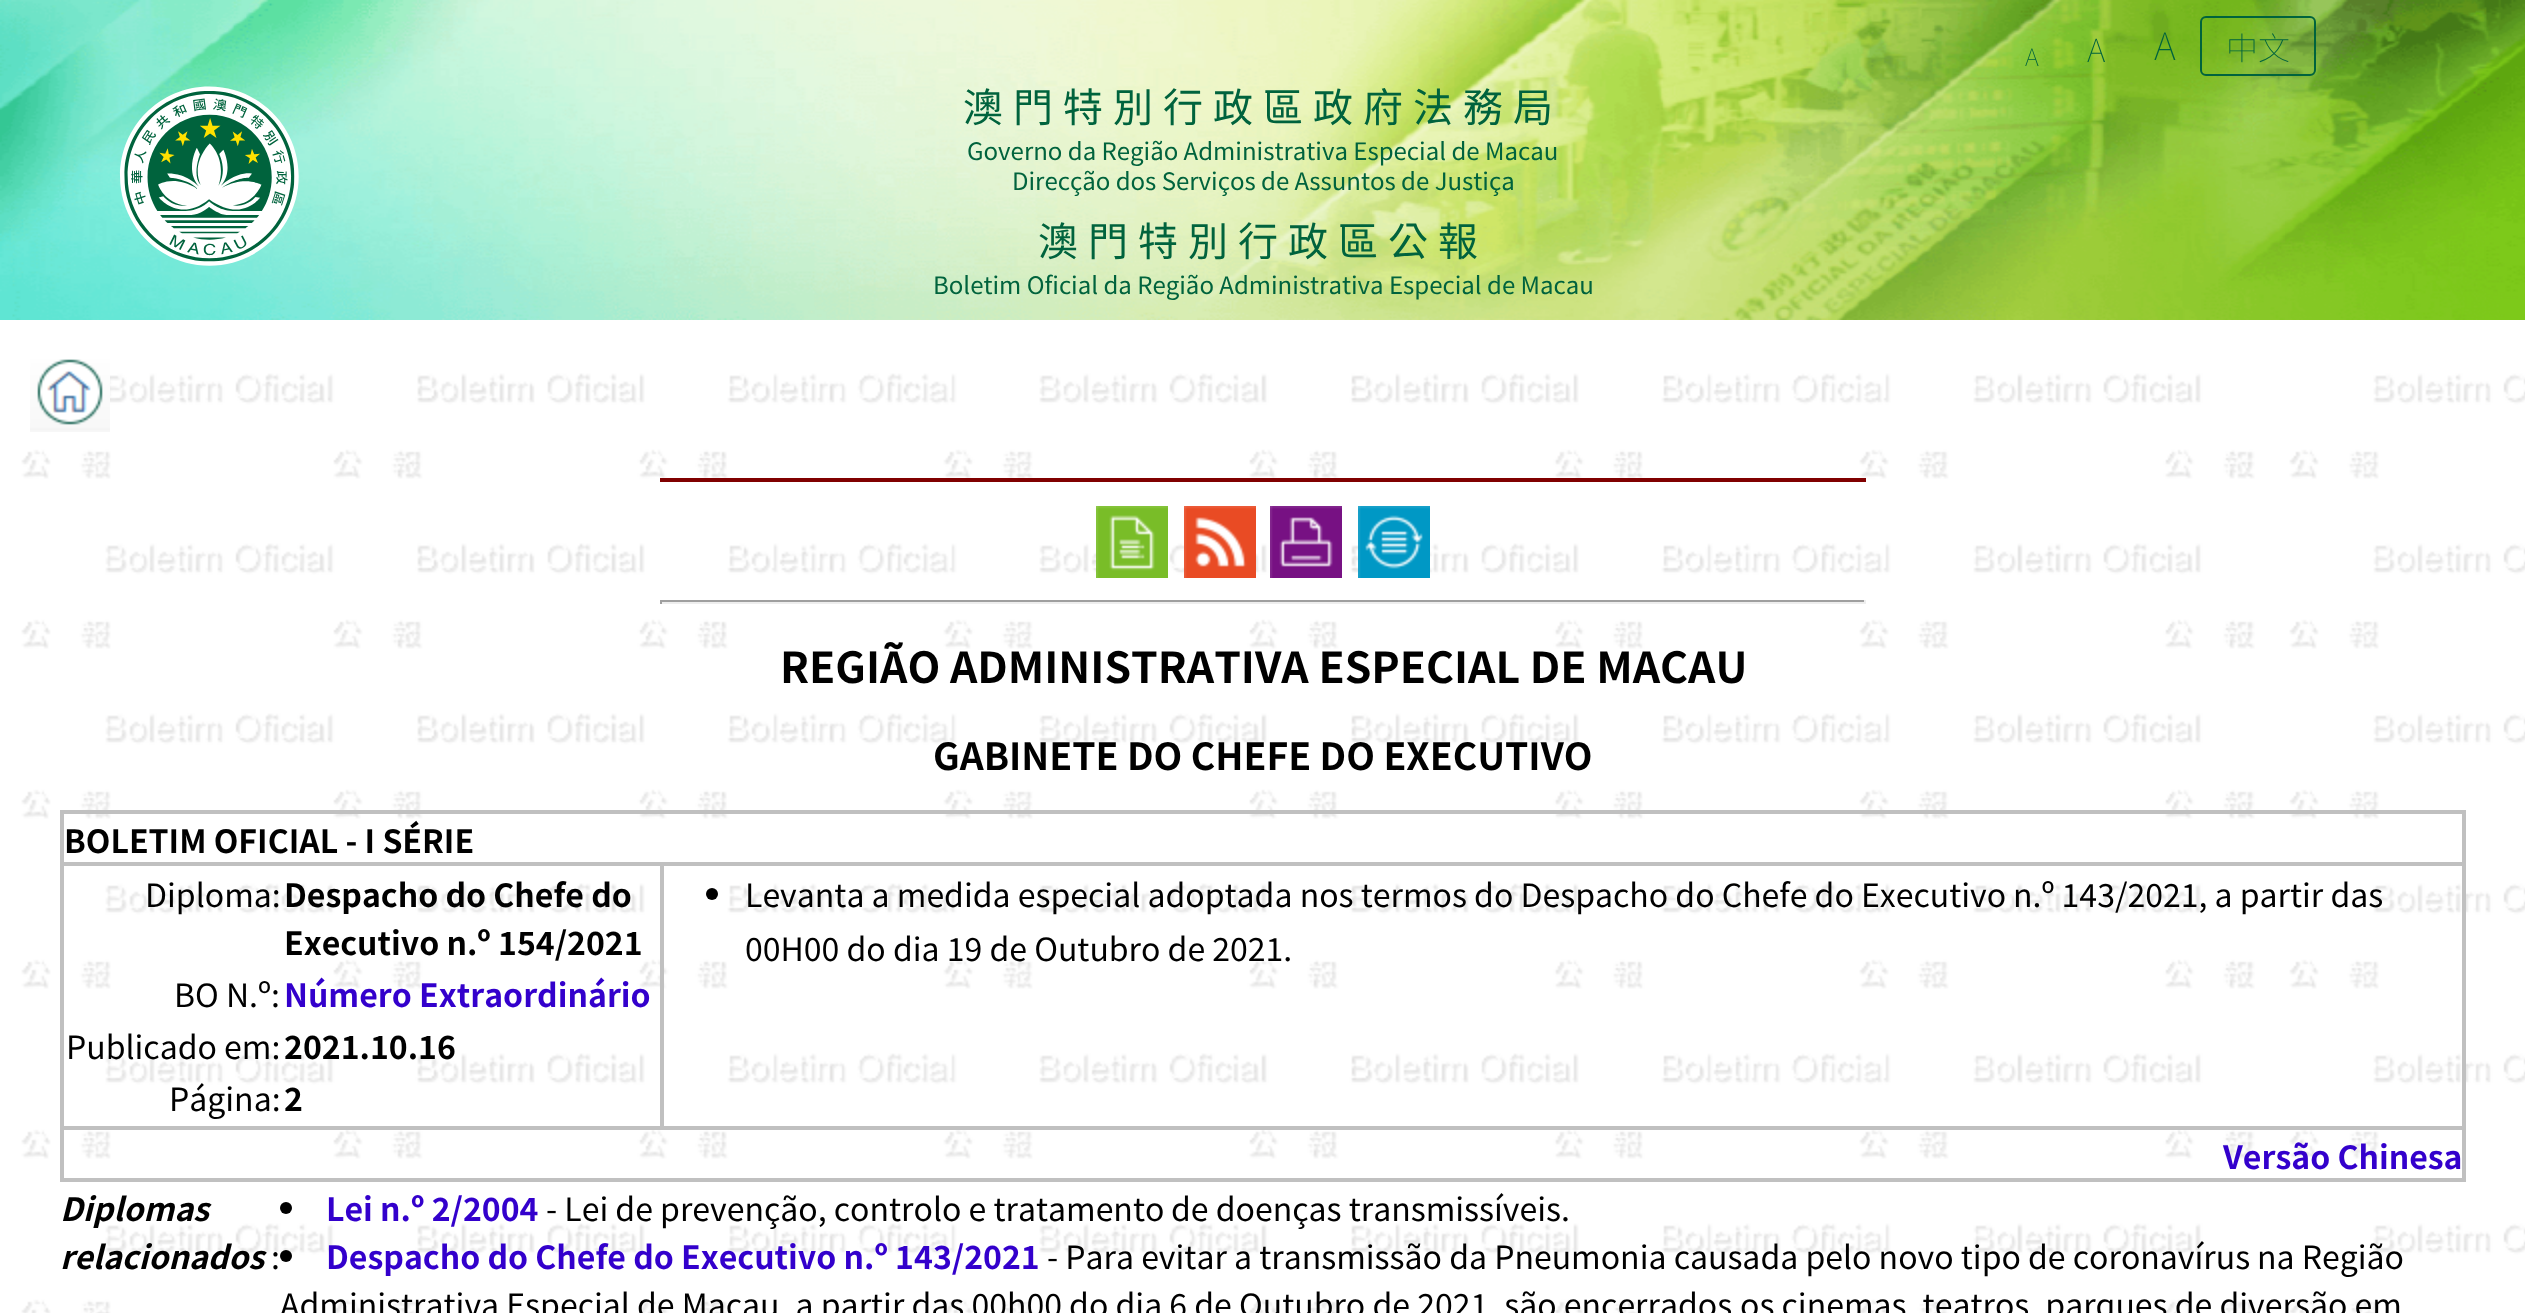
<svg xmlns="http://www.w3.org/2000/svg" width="2525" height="1313">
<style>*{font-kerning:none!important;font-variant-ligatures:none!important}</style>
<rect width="100%" height="100%" fill="#fff"/>
<image x="21" y="320" width="2504" height="993" href="media/1.png"/>
<image x="0" y="0" width="2525" height="320" href="media/2.png"/>
<text x="2025" y="66" style="font-family:Noto Sans TC;font-size:24px;font-weight:100;fill:#00633d">A</text>
<text x="2087" y="62" style="font-family:Noto Sans TC;font-size:32px;font-weight:100;fill:#00633d">A</text>
<text x="2154" y="60" style="font-family:Noto Sans TC;font-size:38px;font-weight:100;fill:#00633d">A</text>
<rect x="2201" y="17" width="114" height="58" rx="5" fill="none" stroke="#00633d" stroke-width="2"/>
<text x="2226" y="60" style="font-family:Noto Sans TC;font-size:32px;font-weight:100;fill:#00633d">中文</text>
<image x="119" y="86" width="180" height="180" href="media/3.png"/>
<text x="963" y="122" style="font-family:Noto Sans TC;font-size:40px;letter-spacing:10px;fill:#00633d">澳門特別行政區政府法務局</text>
<text x="967" y="160" style="font-family:Noto Sans TC;font-size:24px;fill:#00633d">Governo da Região Administrativa Especial de Macau</text>
<text x="1012" y="190" style="font-family:Noto Sans TC;font-size:24px;fill:#00633d">Direcção dos Serviços de Assuntos de Justiça</text>
<text x="1038" y="256" style="font-family:Noto Sans TC;font-size:40px;letter-spacing:10px;fill:#00633d">澳門特別行政區公報</text>
<text x="933" y="294" style="font-family:Noto Sans TC;font-size:24px;fill:#00633d">Boletim Oficial da Região Administrativa Especial de Macau</text>
<image x="30" y="359" width="80" height="73" href="media/4.png"/>
<rect x="660" y="478" width="1206" height="4" fill="#800000"/>
<image x="1096" y="506" width="72" height="72" href="media/5.png"/>
<image x="1184" y="506" width="72" height="72" href="media/6.png"/>
<image x="1270" y="506" width="72" height="72" href="media/7.png"/>
<image x="1358" y="506" width="72" height="72" href="media/8.png"/>
<rect x="660" y="600" width="1206" height="2" fill="#9f9f9f"/>
<rect x="1864" y="600" width="2" height="4" fill="#eee"/>
<rect x="660" y="602" width="1206" height="2" fill="#eee"/>
<rect x="660" y="600" width="2" height="4" fill="#9f9f9f"/>
<text x="780" y="683" style="font-family:Noto Sans TC;font-size:42.7px;font-weight:bold;fill:#000">REGIÃO ADMINISTRATIVA ESPECIAL DE MACAU</text>
<text x="933" y="770" style="font-family:Noto Sans TC;font-size:37.3px;font-weight:bold;fill:#000">GABINETE DO CHEFE DO EXECUTIVO</text>
<rect x="61" y="811" width="2404" height="370" fill="none" stroke="#c0c0c0" stroke-width="2"/>
<rect x="63" y="813" width="2400" height="50" fill="none" stroke="#c0c0c0" stroke-width="2"/>
<text x="64" y="853" style="font-family:Noto Sans TC;font-size:32px;font-weight:bold;fill:#000">BOLETIM OFICIAL - I SÉRIE</text>
<rect x="63" y="865" width="598" height="262" fill="none" stroke="#c0c0c0" stroke-width="2"/>
<text x="145" y="907" style="font-family:Noto Sans TC;font-size:32px;fill:#000">Diploma:</text>
<text x="284" y="907" style="font-family:Noto Sans TC;font-size:32px;font-weight:bold;fill:#000">Despacho do Chefe do</text>
<text x="284" y="955" style="font-family:Noto Sans TC;font-size:32px;font-weight:bold;fill:#000">Executivo n.º 154/2021</text>
<text x="174" y="1007" style="font-family:Noto Sans TC;font-size:32px;fill:#000">BO N.º:</text>
<text x="284" y="1007" style="font-family:Noto Sans TC;font-size:32px;font-weight:bold;fill:#30c">Número Extraordinário</text>
<text x="66" y="1059" style="font-family:Noto Sans TC;font-size:32px;fill:#000">Publicado em:</text>
<text x="284" y="1059" style="font-family:Noto Sans TC;font-size:32px;font-weight:bold;fill:#000">2021.10.16</text>
<text x="169" y="1111" style="font-family:Noto Sans TC;font-size:32px;fill:#000">Página:</text>
<text x="284" y="1111" style="font-family:Noto Sans TC;font-size:32px;font-weight:bold;fill:#000">2</text>
<rect x="663" y="865" width="1800" height="262" fill="none" stroke="#c0c0c0" stroke-width="2"/>
<circle cx="712" cy="894" r="6" fill="#000"/>
<text x="745" y="907" style="font-family:Noto Sans TC;font-size:32px;fill:#000">Levanta a medida especial adoptada nos termos do Despacho do Chefe do Executivo</text>
<text x="2013" y="907" style="font-family:Noto Sans TC;font-size:32px;fill:#000">n.º 143/2021, a partir das</text>
<text x="745" y="961" style="font-family:Noto Sans TC;font-size:32px;fill:#000">00H00 do dia 19 de Outubro de 2021.</text>
<rect x="63" y="1129" width="2400" height="50" fill="none" stroke="#c0c0c0" stroke-width="2"/>
<text x="2223" y="1169" style="font-family:Noto Sans TC;font-size:32px;font-weight:bold;fill:#30c">Versão Chinesa</text>
<text x="60" y="1221" style="font-family:Noto Sans TC;font-size:32px;font-weight:bold;font-style:italic;fill:#000">Diplomas</text>
<text x="60" y="1269" style="font-family:Noto Sans TC;font-size:32px;font-weight:bold;font-style:italic;fill:#000">relacionados</text>
<text x="271" y="1269" style="font-family:Noto Sans TC;font-size:32px;fill:#000">:</text>
<circle cx="286" cy="1208" r="6" fill="#000"/>
<text x="326" y="1221" style="font-family:Noto Sans TC;font-size:32px;font-weight:bold;fill:#30c">Lei n.º 2/2004</text>
<text x="546" y="1221" style="font-family:Noto Sans TC;font-size:32px;fill:#000">- Lei de prevenção, controlo e tratamento</text>
<text x="1171" y="1221" style="font-family:Noto Sans TC;font-size:32px;fill:#000">de doenças transmissíveis.</text>
<circle cx="286" cy="1256" r="6" fill="#000"/>
<text x="326" y="1269" style="font-family:Noto Sans TC;font-size:32px;font-weight:bold;fill:#30c">Despacho do Chefe do Executivo n.º 143/2021</text>
<text x="1047" y="1269" style="font-family:Noto Sans TC;font-size:32px;fill:#000">- Para evitar a transmissão da Pneumonia causada pelo novo tipo de coronavírus</text>
<text x="2257" y="1269" style="font-family:Noto Sans TC;font-size:32px;fill:#000">na Região</text>
<text x="280" y="1317" style="font-family:Noto Sans TC;font-size:32px;fill:#000">Administrativa Especial de Macau, a partir das 00h00 do dia 6 de Outubro de 2021, são encerrados</text>
<text x="1740" y="1317" style="font-family:Noto Sans TC;font-size:32px;fill:#000">os cinemas, teatros, parques de diversão em</text>
</svg>
